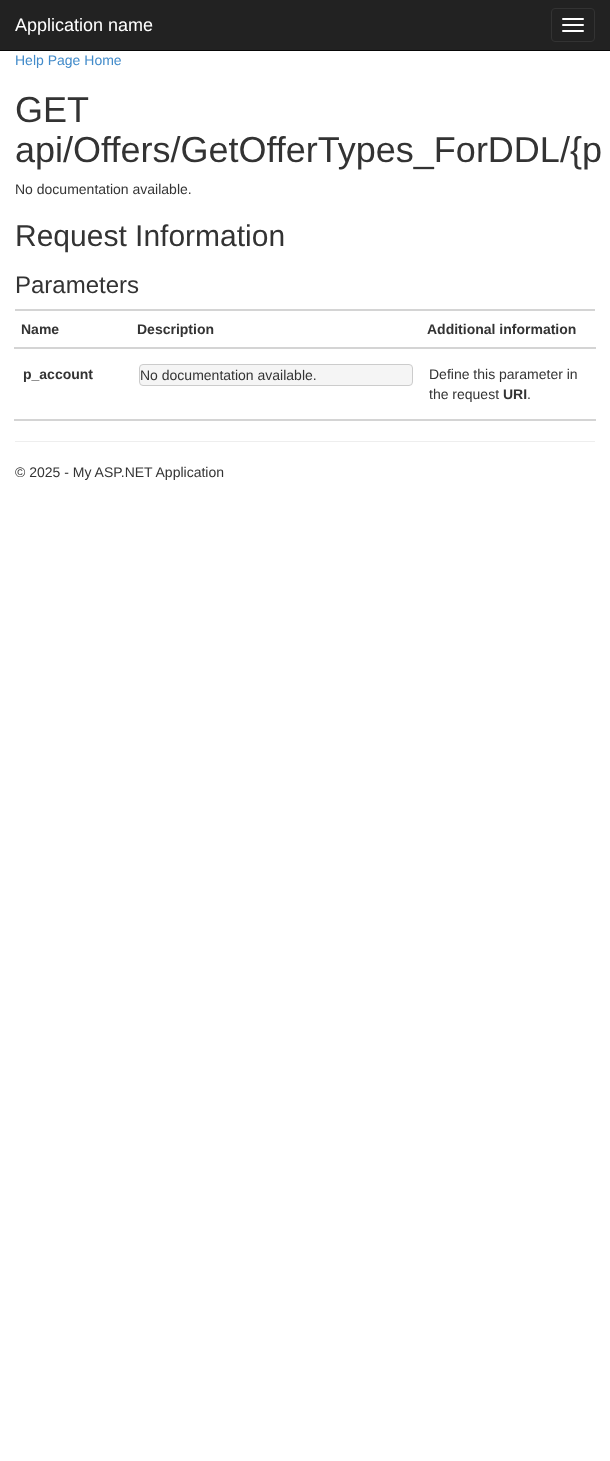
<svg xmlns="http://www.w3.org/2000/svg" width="610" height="1461">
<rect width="100%" height="100%" fill="#fff"/>
<rect width="610" height="50" fill="#222"/>
<rect y="50" width="610" height="1" fill="#080808"/>
<text x="15" y="31" style="font-family:Liberation Sans;font-size:18px;fill:#fff">Application name</text>
<rect x="551.5" y="8.5" width="43" height="33" rx="3.5" fill="none" stroke="#333"/>
<rect x="562" y="18" width="22" height="2" rx="1" fill="#fff"/>
<rect x="562" y="24" width="22" height="2" rx="1" fill="#fff"/>
<rect x="562" y="30" width="22" height="2" rx="1" fill="#fff"/>
<text x="15" y="65" style="font-family:Liberation Sans;font-size:14px;fill:#428bca">Help Page Home</text>
<text x="15" y="122" style="font-family:Liberation Sans;font-size:36px;fill:#333">GET</text>
<text x="15" y="162" style="font-family:Liberation Sans;font-size:36px;fill:#333">api/Offers/GetOfferTypes_ForDDL/{p</text>
<text x="15" y="194" style="font-family:Liberation Sans;font-size:14px;fill:#333">No documentation available.</text>
<text x="15" y="246" style="font-family:Liberation Sans;font-size:30px;fill:#333">Request Information</text>
<text x="15" y="293" style="font-family:Liberation Sans;font-size:24px;fill:#333">Parameters</text>
<rect x="15" y="309" width="580" height="2" fill="#d4d4d4"/>
<text x="21" y="334" style="font-family:Liberation Sans;font-size:14px;font-weight:bold;fill:#333">Name</text>
<text x="137" y="334" style="font-family:Liberation Sans;font-size:14px;font-weight:bold;fill:#333">Description</text>
<rect x="14" y="347" width="582" height="2" fill="#d4d4d4"/>
<text x="427" y="334" style="font-family:Liberation Sans;font-size:14px;font-weight:bold;fill:#333">Additional information</text>
<text x="23" y="379" style="font-family:Liberation Sans;font-size:14px;font-weight:bold;fill:#333">p_account</text>
<rect x="139.5" y="364.5" width="273" height="21" rx="3.5" fill="#f5f5f5" stroke="#ccc"/>
<text x="140" y="380" style="font-family:Liberation Sans;font-size:14px;fill:#333">No documentation available.</text>
<rect x="14" y="419" width="582" height="2" fill="#d4d4d4"/>
<text x="429" y="379" style="font-family:Liberation Sans;font-size:14px;fill:#333">Define this parameter in</text>
<text x="429" y="399" style="font-family:Liberation Sans;font-size:14px;fill:#333">the request</text>
<text x="503" y="399" style="font-family:Liberation Sans;font-size:14px;font-weight:bold;fill:#333">URI</text>
<text x="527" y="399" style="font-family:Liberation Sans;font-size:14px;fill:#333">.</text>
<rect x="15" y="441" width="580" height="1" fill="#eee"/>
<text x="15" y="477" style="font-family:Liberation Sans;font-size:14px;fill:#333">© 2025 - My ASP.NET Application</text>
</svg>
